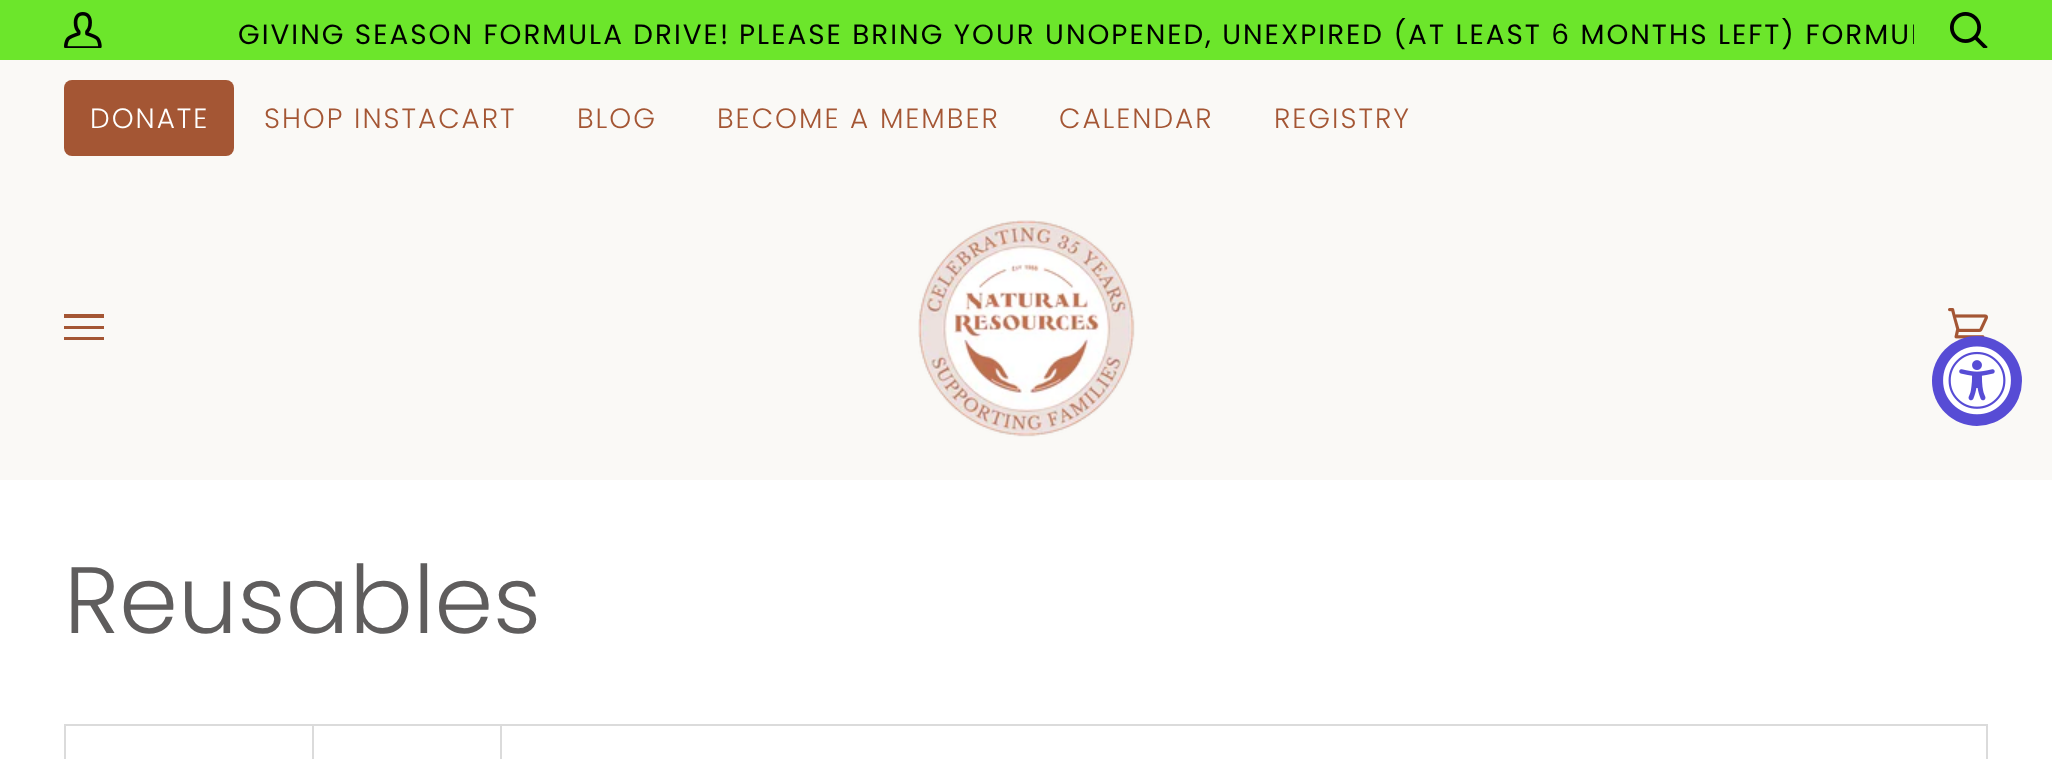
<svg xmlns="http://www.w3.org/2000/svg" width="2052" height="759">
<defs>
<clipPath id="clip1"><rect x="138" width="1776" height="60"/></clipPath>
</defs>
<rect width="100%" height="100%" fill="#fff"/>
<rect width="2052" height="60" fill="#6ce62b"/>
<image x="64" y="12" width="38" height="36" href="media/1.png"/>
<text x="238" y="44" style="font-family:Poppins;font-size:27.85px;letter-spacing:2px;fill:#000">GIVING SEASON FORMULA DRIVE!</text>
<g clip-path="url(#clip1)">
<text x="739" y="44" style="font-family:Poppins;font-size:27.85px;letter-spacing:2px;fill:#000">PLEASE BRING YOUR UNOPENED, UNEXPIRED (AT LEAST 6 MONTHS LEFT) FORMUL</text>
</g>
<image x="1950" y="12" width="38" height="36" href="media/2.png"/>
<rect y="60" width="2052" height="420" fill="#faf9f6"/>
<rect x="64" y="80" width="170" height="76" rx="8" fill="#a45634"/>
<text x="90" y="128" style="font-family:Poppins;font-size:27.85px;font-weight:300;letter-spacing:2px;fill:#fff">DONATE</text>
<text x="264" y="128" style="font-family:Poppins;font-size:27.85px;font-weight:300;letter-spacing:2px;fill:#a45634">SHOP INSTACART</text>
<text x="577" y="128" style="font-family:Poppins;font-size:27.85px;font-weight:300;letter-spacing:2px;fill:#a45634">BLOG</text>
<text x="717" y="128" style="font-family:Poppins;font-size:27.85px;font-weight:300;letter-spacing:2px;fill:#a45634">BECOME A MEMBER</text>
<text x="1059" y="128" style="font-family:Poppins;font-size:27.85px;font-weight:300;letter-spacing:2px;fill:#a45634">CALENDAR</text>
<text x="1274" y="128" style="font-family:Poppins;font-size:27.85px;font-weight:300;letter-spacing:2px;fill:#a45634">REGISTRY</text>
<path d="M64 314h40v4h-40zm0 12h40v3h-40zm0 11h40v3h-40z" fill="#a45634"/>
<image x="918" y="220" width="217" height="217" href="media/3.png"/>
<image x="1948" y="308" width="40" height="31" href="media/4.png"/>
<circle cx="1977" cy="381" r="45" fill="#574cd5"/>
<image x="1943" y="346" width="68" height="69" href="media/5.png"/>
<text x="64" y="633" style="font-family:Poppins;font-size:94.25px;font-weight:300;fill:#5f5d5d">Reusables</text>
<rect x="65" y="725" width="1922" height="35" fill="none" stroke="#dbdbdb" stroke-width="2"/>
<rect x="312" y="726" width="2" height="33" fill="#dbdbdb"/>
<rect x="500" y="726" width="2" height="33" fill="#dbdbdb"/>
</svg>
